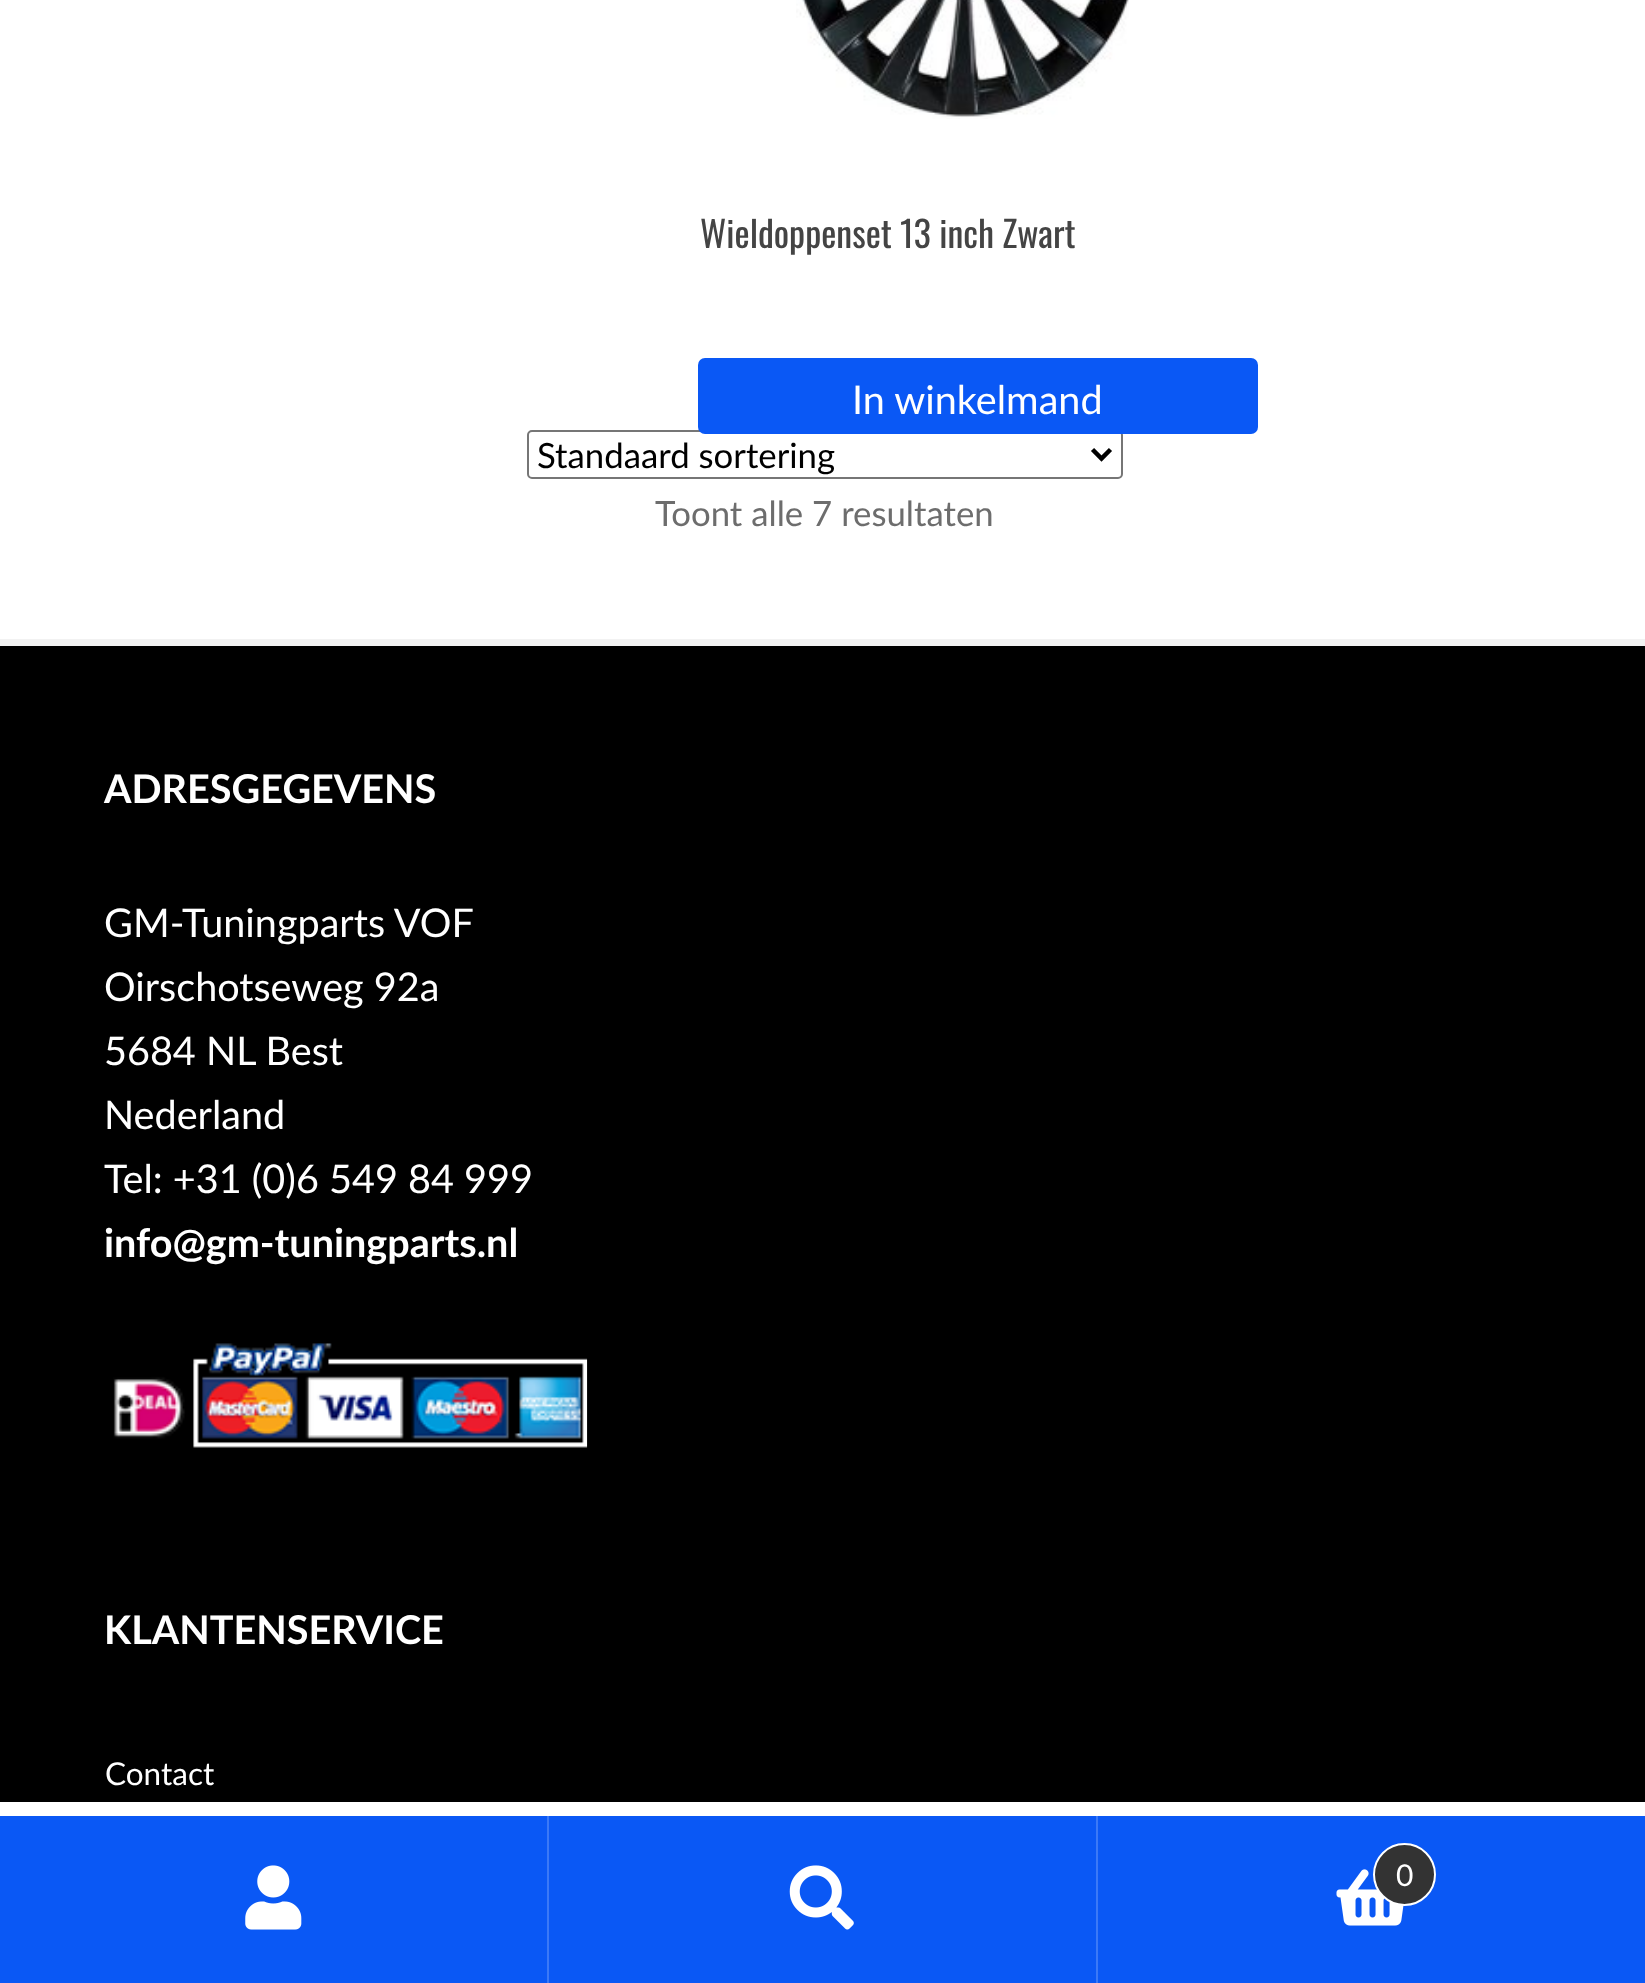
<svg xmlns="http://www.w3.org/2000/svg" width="1645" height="1983">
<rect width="100%" height="100%" fill="#fff"/>
<image x="796" y="0" width="333" height="119" href="media/1.png"/>
<text x="700" y="248" style="font-family:Oswald;font-size:36px;fill:#444">Wieldoppenset 13 inch Zwart</text>
<rect x="528" y="431" width="594" height="47" rx="4" fill="none" stroke="#767676" stroke-width="2"/>
<rect x="698" y="358" width="560" height="76" rx="7" fill="#0a58f5"/>
<text x="852" y="414" style="font-family:Lato;font-size:39.6px;fill:#fff">In winkelmand</text>
<path d="M1092.5 449.5l9 9l9-9" fill="none" stroke="#000" stroke-width="4.5"/>
<text x="537" y="468" style="font-family:Lato;font-size:34.75px;fill:#000">Standaard sortering</text>
<text x="655" y="526" style="font-family:Lato;font-size:34.75px;fill:#6d6d6d">Toont alle 7 resultaten</text>
<rect x="-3.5" y="642.5" width="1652" height="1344" fill="none" stroke="#f2f2f2" stroke-width="7"/>
<rect y="646" width="1645" height="1156" fill="#000"/>
<text x="104" y="803" style="font-family:Lato;font-size:39.6px;font-weight:bold;fill:#fff">ADRESGEGEVENS</text>
<text x="104" y="937" style="font-family:Lato;font-size:39.6px;fill:#fff">GM-Tuningparts VOF</text>
<text x="104" y="1001" style="font-family:Lato;font-size:39.6px;fill:#fff">Oirschotseweg 92a</text>
<text x="104" y="1065" style="font-family:Lato;font-size:39.6px;fill:#fff">5684 NL Best</text>
<text x="104" y="1129" style="font-family:Lato;font-size:39.6px;fill:#fff">Nederland</text>
<text x="104" y="1193" style="font-family:Lato;font-size:39.6px;fill:#fff">Tel: +31 (0)6 549 84 999</text>
<text x="104" y="1257" style="font-family:Lato;font-size:39.6px;font-weight:bold;fill:#fff">info@gm-tuningparts.nl</text>
<image x="113" y="1343" width="475" height="105" href="media/2.png"/>
<text x="104" y="1644" style="font-family:Lato;font-size:39.6px;font-weight:bold;fill:#fff">KLANTENSERVICE</text>
<text x="105" y="1785" style="font-family:Lato;font-size:31.5px;fill:#fff">Contact</text>
<rect y="1816" width="547" height="167" fill="#0a58f5"/>
<rect x="547" y="1816" width="2" height="167" fill="#3b79f7"/>
<image x="245" y="1865" width="57" height="65" href="media/3.png"/>
<rect x="549" y="1816" width="547" height="167" fill="#0a58f5"/>
<rect x="1096" y="1816" width="2" height="167" fill="#3b79f7"/>
<image x="789" y="1865" width="65" height="65" href="media/4.png"/>
<rect x="1098" y="1816" width="547" height="167" fill="#0a58f5"/>
<image x="1336" y="1869" width="68" height="57" href="media/5.png"/>
<circle cx="1404.5" cy="1874.5" r="30.5" fill="#333" stroke="#fff" stroke-width="2"/>
<text x="1396" y="1886" style="font-family:Lato;font-size:30px;fill:#fff">0</text>
</svg>
